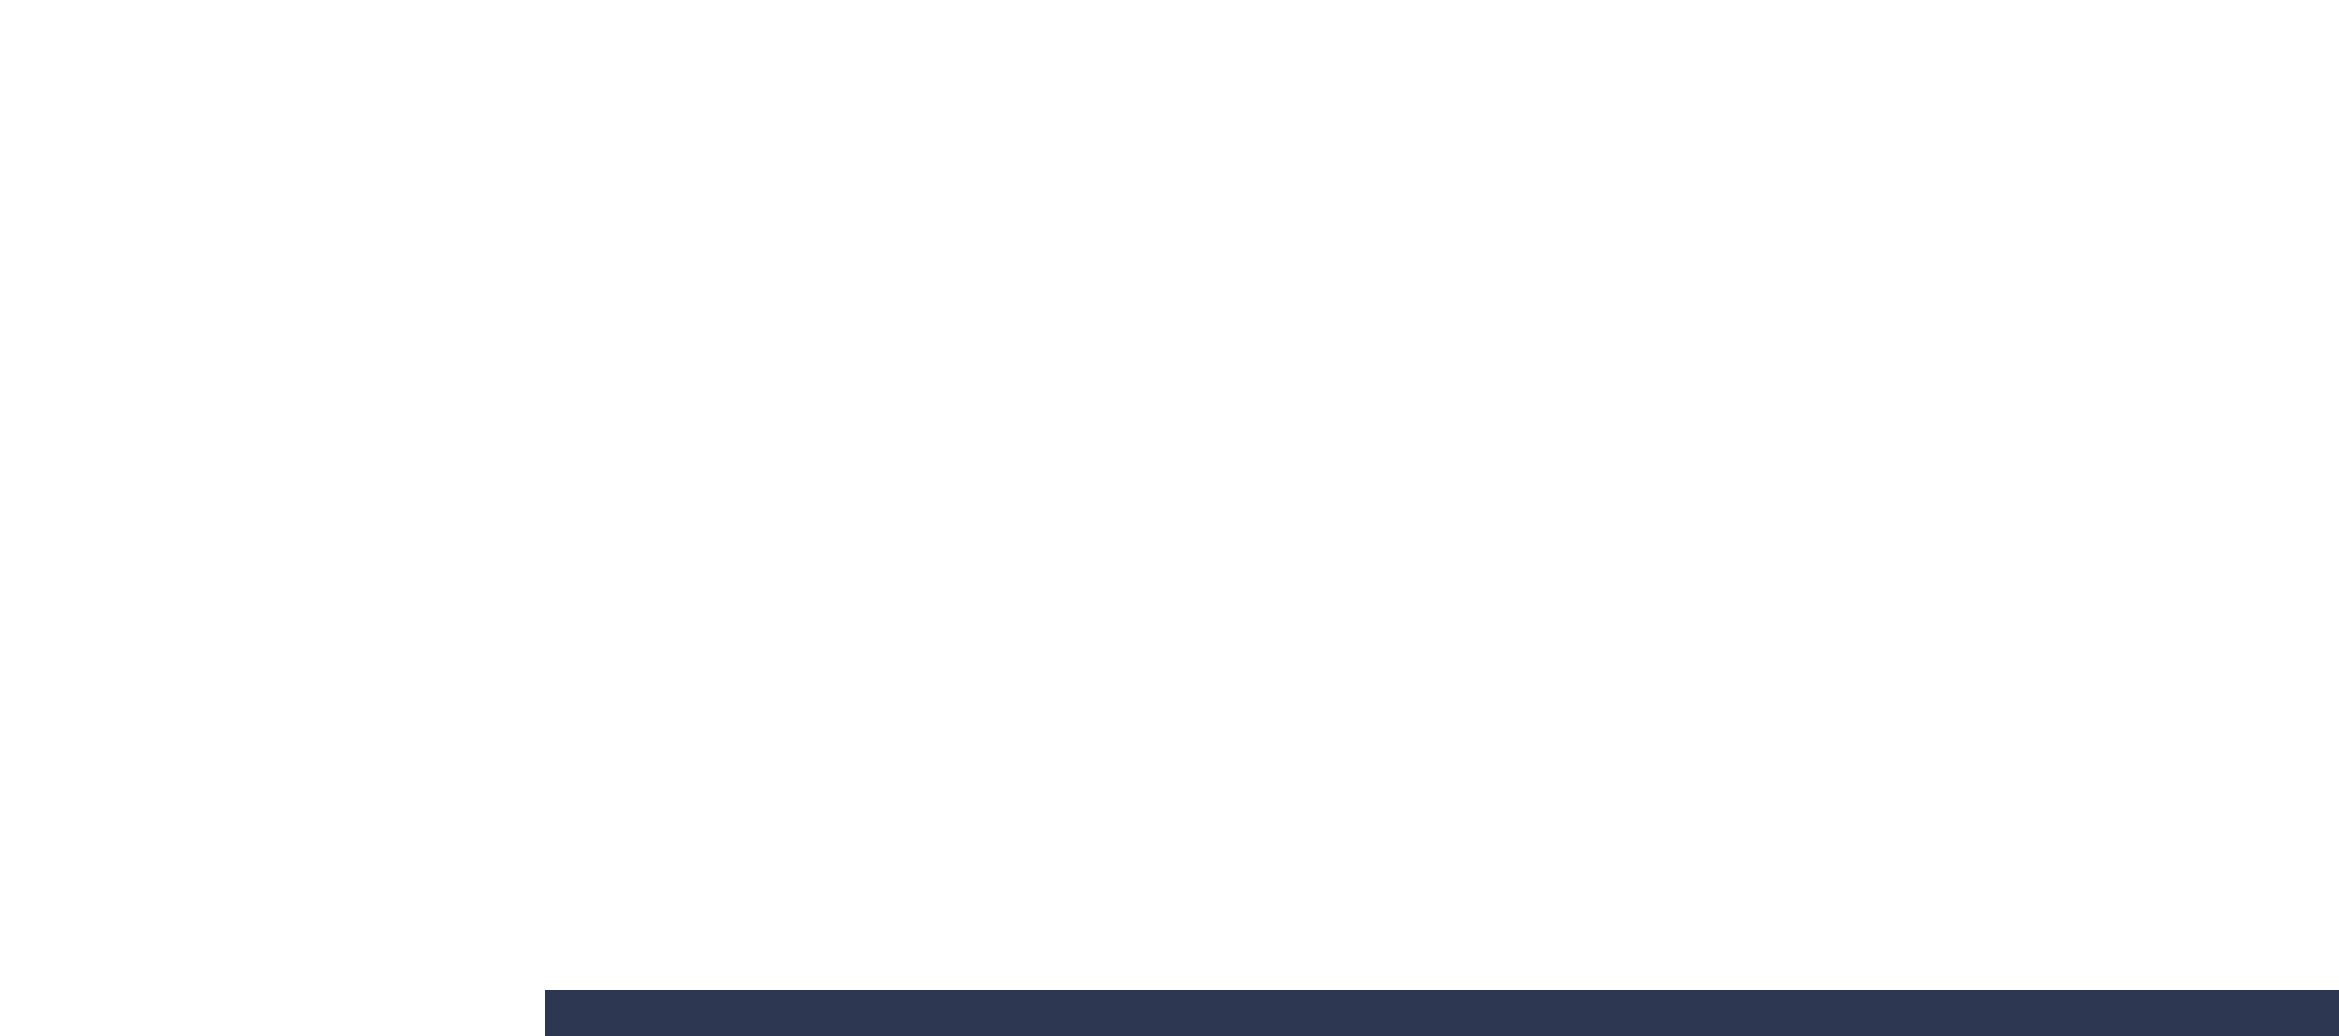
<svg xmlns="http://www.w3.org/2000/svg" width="2339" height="1036">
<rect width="100%" height="100%" fill="#fff"/>
<rect x="545" y="990" width="1794" height="46" fill="#2e3751"/>
</svg>
